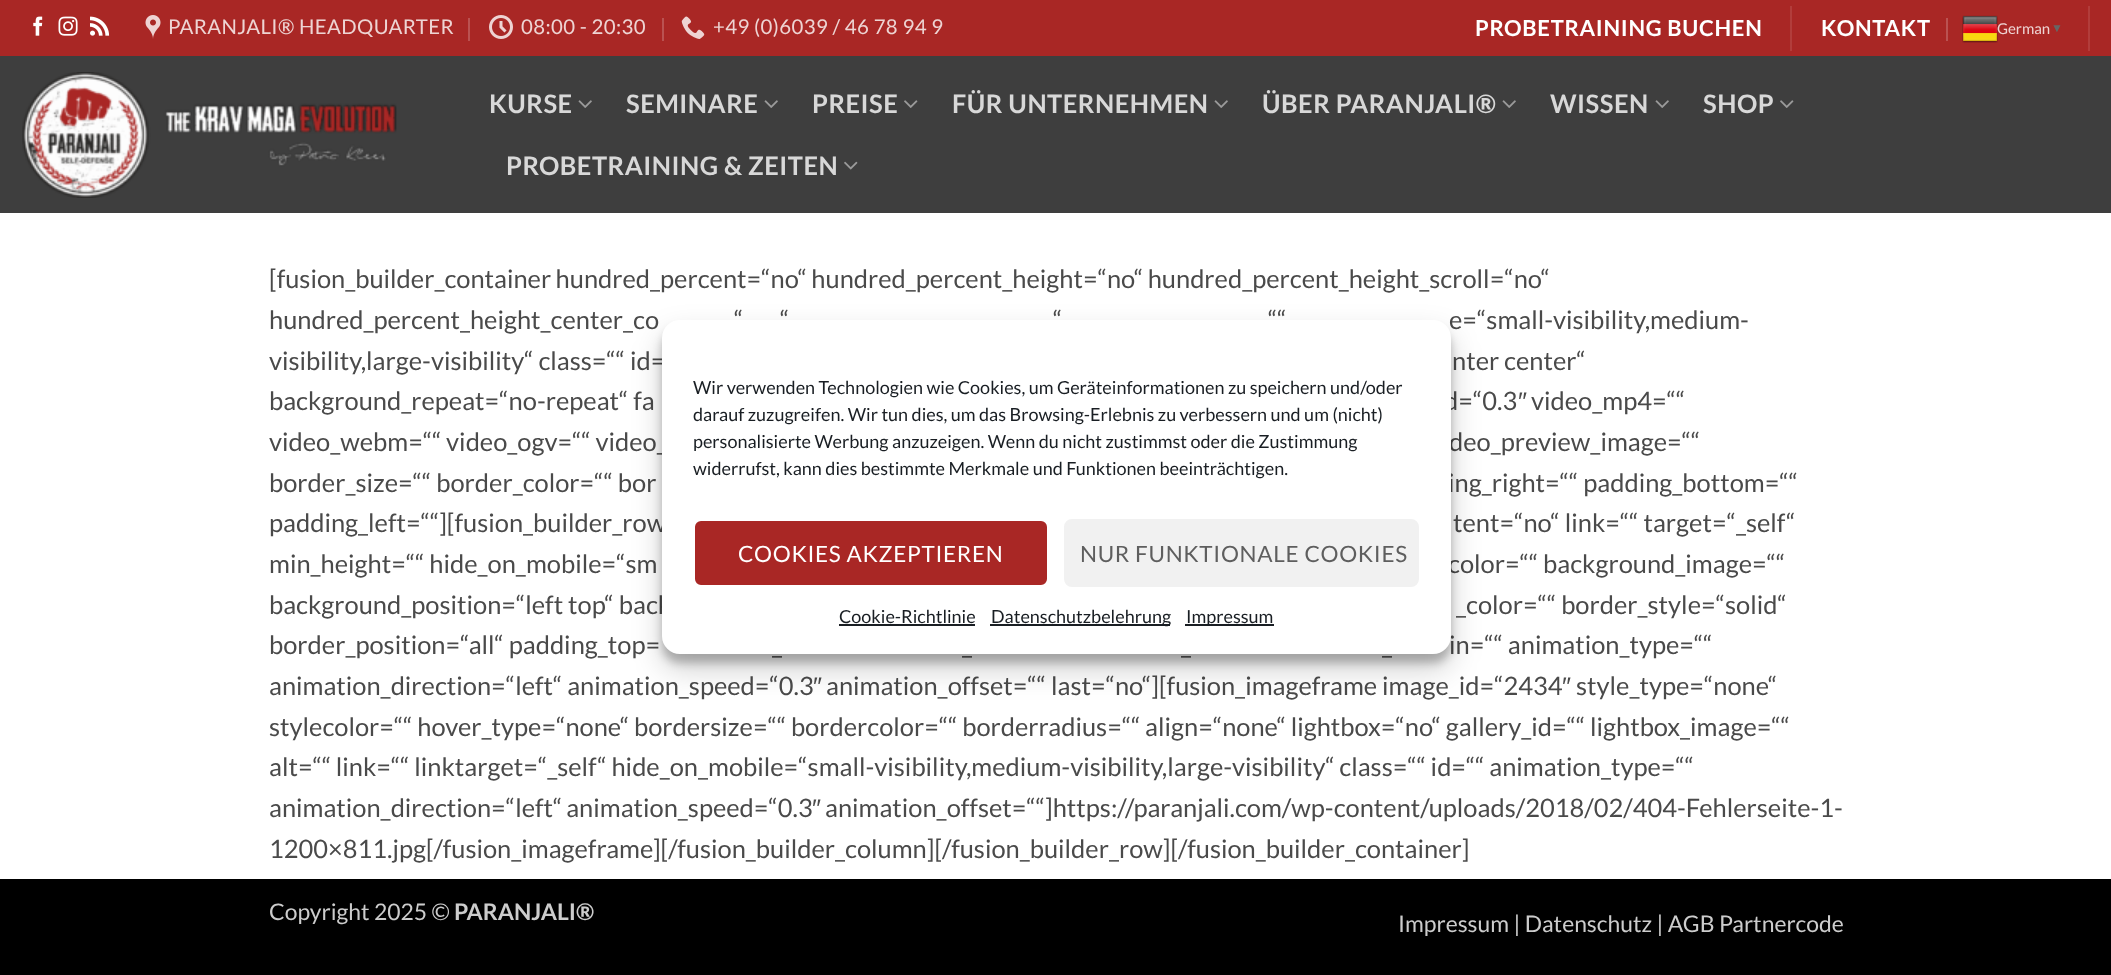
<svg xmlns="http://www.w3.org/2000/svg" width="2111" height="975">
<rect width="100%" height="100%" fill="#fff"/>
<rect width="2111" height="56" fill="#a92725"/>
<image x="33" y="16" width="10" height="20" href="media/1.png"/>
<image x="58" y="16" width="20" height="20" href="media/2.png"/>
<image x="90" y="16" width="20" height="20" href="media/3.png"/>
<image x="145" y="15" width="16" height="24" href="media/4.png"/>
<text x="168" y="34" style="font-family:Lato;font-size:20.4px;letter-spacing:0.4px;fill:#eed4d3">PARANJALI® HEADQUARTER</text>
<rect x="468" y="18" width="2" height="23" fill="#ba5251"/>
<image x="489" y="15" width="24" height="24" href="media/5.png"/>
<text x="521" y="34" style="font-family:Lato;font-size:20.4px;letter-spacing:0.4px;fill:#eed4d3">08:00 - 20:30</text>
<rect x="662" y="18" width="2" height="23" fill="#ba5251"/>
<image x="681" y="16" width="24" height="23" href="media/6.png"/>
<text x="713" y="34" style="font-family:Lato;font-size:20.4px;letter-spacing:0.4px;fill:#eed4d3">+49 (0)6039 / 46 78 94 9</text>
<text x="1475" y="36" style="font-family:Lato;font-size:22px;font-weight:bold;letter-spacing:0.7px;fill:#fff">PROBETRAINING BUCHEN</text>
<rect x="1790" y="6" width="2" height="45" fill="#b23d3b"/>
<text x="1821" y="36" style="font-family:Lato;font-size:22px;font-weight:bold;letter-spacing:0.7px;fill:#fff">KONTAKT</text>
<rect x="1946" y="18" width="2" height="23" fill="#ba5251"/>
<image x="1962" y="15" width="36" height="28" href="media/7.png"/>
<text x="1997" y="34" style="font-family:Lato;font-size:15px;fill:#eed4d3">German</text>
<text x="2051" y="32" style="font-family:Liberation Sans;font-size:12px;font-weight:bold;fill:#666">▼</text>
<rect x="2088" y="6" width="2" height="45" fill="#b23d3b"/>
<rect y="56" width="2111" height="157" fill="#3e3e3e"/>
<image x="22" y="72" width="375" height="126" href="media/8.png"/>
<text x="489" y="113" style="font-family:Lato;font-size:25.45px;font-weight:bold;letter-spacing:0.5px;fill:#d8d8d8">KURSE</text>
<image x="578" y="100" width="14" height="8" href="media/9.png"/>
<text x="626" y="113" style="font-family:Lato;font-size:25.45px;font-weight:bold;letter-spacing:0.5px;fill:#d8d8d8">SEMINARE</text>
<image x="764" y="100" width="14" height="8" href="media/9.png"/>
<text x="812" y="113" style="font-family:Lato;font-size:25.45px;font-weight:bold;letter-spacing:0.5px;fill:#d8d8d8">PREISE</text>
<image x="904" y="100" width="14" height="8" href="media/10.png"/>
<text x="952" y="113" style="font-family:Lato;font-size:25.45px;font-weight:bold;letter-spacing:0.5px;fill:#d8d8d8">FÜR UNTERNEHMEN</text>
<image x="1214" y="100" width="14" height="8" href="media/9.png"/>
<text x="1262" y="113" style="font-family:Lato;font-size:25.45px;font-weight:bold;letter-spacing:0.5px;fill:#d8d8d8">ÜBER PARANJALI®</text>
<image x="1502" y="100" width="14" height="8" href="media/9.png"/>
<text x="1550" y="113" style="font-family:Lato;font-size:25.45px;font-weight:bold;letter-spacing:0.5px;fill:#d8d8d8">WISSEN</text>
<image x="1655" y="100" width="14" height="8" href="media/9.png"/>
<text x="1703" y="113" style="font-family:Lato;font-size:25.45px;font-weight:bold;letter-spacing:0.5px;fill:#d8d8d8">SHOP</text>
<image x="1780" y="100" width="14" height="8" href="media/10.png"/>
<text x="506" y="175" style="font-family:Lato;font-size:25.45px;font-weight:bold;letter-spacing:0.5px;fill:#d8d8d8">PROBETRAINING &amp; ZEITEN</text>
<image x="844" y="161" width="14" height="9" href="media/11.png"/>
<text x="269" y="288" word-spacing="-0.5" style="font-family:Lato;font-size:25.45px;fill:#4a4a4a">[fusion_builder_container hundred_percent=“no“ hundred_percent_height=“no“ hundred_percent_height_scroll=“no“</text>
<text x="269" y="329" word-spacing="-1" style="font-family:Lato;font-size:25.45px;fill:#4a4a4a">hundred_percent_height_center_co</text>
<text x="734" y="329" word-spacing="-1" style="font-family:Lato;font-size:25.45px;fill:#4a4a4a">“</text>
<text x="780" y="329" word-spacing="-1" style="font-family:Lato;font-size:25.45px;fill:#4a4a4a">“</text>
<text x="1053" y="329" word-spacing="-1" style="font-family:Lato;font-size:25.45px;fill:#4a4a4a">“</text>
<text x="1268" y="329" word-spacing="-1" style="font-family:Lato;font-size:25.45px;fill:#4a4a4a">““</text>
<text x="1449" y="329" word-spacing="-1" style="font-family:Lato;font-size:25.45px;fill:#4a4a4a">e=“small-visibility,medium-</text>
<text x="269" y="370" style="font-family:Lato;font-size:25.45px;fill:#4a4a4a">visibility,large-visibility“ class=““ id=</text>
<text x="1452" y="370" style="font-family:Lato;font-size:25.45px;fill:#4a4a4a">nter center“</text>
<text x="269" y="410" style="font-family:Lato;font-size:25.45px;fill:#4a4a4a">background_repeat=“no-repeat“ fa</text>
<text x="1444" y="410" style="font-family:Lato;font-size:25.45px;fill:#4a4a4a">d=“0.3</text>
<text x="1518" y="410" style="font-family:Liberation Sans;font-size:25.45px;fill:#4a4a4a">″</text>
<text x="1531" y="410" style="font-family:Lato;font-size:25.45px;fill:#4a4a4a">video_mp4=““</text>
<text x="269" y="451" word-spacing="-0.25" style="font-family:Lato;font-size:25.45px;fill:#4a4a4a">video_webm=““ video_ogv=““ video_</text>
<text x="1449" y="451" word-spacing="-0.25" style="font-family:Lato;font-size:25.45px;fill:#4a4a4a">deo_preview_image=““</text>
<text x="269" y="492" style="font-family:Lato;font-size:25.45px;fill:#4a4a4a">border_size=““ border_color=““ bor</text>
<text x="1448" y="492" style="font-family:Lato;font-size:25.45px;fill:#4a4a4a">ing_right=““ padding_bottom=““</text>
<text x="269" y="532" style="font-family:Lato;font-size:25.45px;fill:#4a4a4a">padding_left=““][fusion_builder_row</text>
<text x="1453" y="532" style="font-family:Lato;font-size:25.45px;fill:#4a4a4a">tent=“no“ link=““ target=“_self“</text>
<text x="269" y="573" style="font-family:Lato;font-size:25.45px;fill:#4a4a4a">min_height=““ hide_on_mobile=“sm</text>
<text x="1448" y="573" style="font-family:Lato;font-size:25.45px;fill:#4a4a4a">color=““ background_image=““</text>
<text x="269" y="614" style="font-family:Lato;font-size:25.45px;fill:#4a4a4a">background_position=“left top“ back</text>
<text x="1456" y="614" style="font-family:Lato;font-size:25.45px;fill:#4a4a4a">_color=““ border_style=“solid“</text>
<text x="269" y="654" style="font-family:Lato;font-size:25.45px;fill:#4a4a4a">border_position=“all“ padding_top=</text>
<text x="772" y="654" style="font-family:Lato;font-size:25.45px;fill:#4a4a4a">_</text>
<text x="962" y="654" style="font-family:Lato;font-size:25.45px;fill:#4a4a4a">_</text>
<text x="1181" y="654" style="font-family:Lato;font-size:25.45px;fill:#4a4a4a">_</text>
<text x="1382" y="654" style="font-family:Lato;font-size:25.45px;fill:#4a4a4a">_</text>
<text x="1449" y="654" style="font-family:Lato;font-size:25.45px;fill:#4a4a4a">in=““ animation_type=““</text>
<text x="269" y="695" style="font-family:Lato;font-size:25.45px;fill:#4a4a4a">animation_direction=“left“ animation_speed=“0.3</text>
<text x="813" y="695" style="font-family:Liberation Sans;font-size:25.45px;fill:#4a4a4a">″</text>
<text x="826" y="695" style="font-family:Lato;font-size:25.45px;fill:#4a4a4a">animation_offset=““ last=“no“][fusion_imageframe image_id=“2434</text>
<text x="1562" y="695" style="font-family:Liberation Sans;font-size:25.45px;fill:#4a4a4a">″</text>
<text x="1576" y="695" style="font-family:Lato;font-size:25.45px;fill:#4a4a4a">style_type=“none“</text>
<text x="269" y="736" word-spacing="-0.25" style="font-family:Lato;font-size:25.45px;fill:#4a4a4a">stylecolor=““ hover_type=“none“ bordersize=““ bordercolor=““ borderradius=““ align=“none“ lightbox=“no“ gallery_id=““ lightbox_image=““</text>
<text x="269" y="776" word-spacing="-0.25" style="font-family:Lato;font-size:25.45px;fill:#4a4a4a">alt=““ link=““ linktarget=“_self“ hide_on_mobile=“small-visibility,medium-visibility,large-visibility“ class=““ id=““ animation_type=““</text>
<text x="269" y="817" word-spacing="-1" style="font-family:Lato;font-size:25.45px;fill:#4a4a4a">animation_direction=“left“ animation_speed=“0.3</text>
<text x="812" y="817" style="font-family:Liberation Sans;font-size:25.45px;fill:#4a4a4a">″</text>
<text x="825" y="817" style="font-family:Lato;font-size:25.45px;fill:#4a4a4a">animation_offset=““]https://paranjali.com/wp-content/uploads/2018/02/404-Fehlerseite-1-</text>
<text x="269" y="858" style="font-family:Lato;font-size:25.45px;fill:#4a4a4a">1200×811.jpg[/fusion_imageframe][/fusion_builder_column][/fusion_builder_row][/fusion_builder_container]</text>
<rect y="879" width="2111" height="96" fill="#000"/>
<text x="269" y="920" style="font-family:Lato;font-size:22.9px;fill:#ccc">Copyright 2025 ©</text>
<text x="454" y="920" style="font-family:Lato;font-size:22.9px;font-weight:bold;fill:#ccc">PARANJALI®</text>
<text x="1398" y="932" style="font-family:Lato;font-size:22.9px;fill:#ccc">Impressum | Datenschutz | AGB Partnercode</text>
<rect x="662" y="329" width="789" height="334" rx="18" fill="#0000003b" filter="blur(4.5px)"/>
<rect x="662" y="335" width="789" height="334" rx="18" fill="#00000030" filter="blur(15px)"/>
<rect x="663" y="321" width="787" height="332" rx="17" fill="#fff" stroke="#fff" stroke-width="2"/>
<text x="693" y="394" style="font-family:Lato;font-size:18px;fill:#191e23">Wir verwenden Technologien wie Cookies, um Geräteinformationen zu speichern und/oder</text>
<text x="693" y="421" style="font-family:Lato;font-size:18px;fill:#191e23">darauf zuzugreifen. Wir tun dies, um das Browsing-Erlebnis zu verbessern und um (nicht)</text>
<text x="693" y="448" style="font-family:Lato;font-size:18px;fill:#191e23">personalisierte Werbung anzuzeigen. Wenn du nicht zustimmst oder die Zustimmung</text>
<text x="693" y="475" style="font-family:Lato;font-size:18px;fill:#191e23">widerrufst, kann dies bestimmte Merkmale und Funktionen beeinträchtigen.</text>
<rect x="694" y="520" width="354" height="66" rx="7" fill="#a92725" stroke="#fff" stroke-width="2"/>
<text x="738" y="562" style="font-family:Lato;font-size:22.5px;letter-spacing:0.7px;fill:#fff">COOKIES AKZEPTIEREN</text>
<rect x="1065" y="520" width="353" height="66" rx="7" fill="#f1f1f1" stroke="#f1f1f1" stroke-width="2"/>
<text x="1080" y="562" style="font-family:Lato;font-size:22.5px;letter-spacing:0.7px;fill:#5e5e5e">NUR FUNKTIONALE COOKIES</text>
<text x="839" y="623" style="font-family:Lato;font-size:18px;fill:#191e23">Cookie-Richtlinie</text>
<rect x="839" y="624" width="136" height="2" fill="#191e23"/>
<rect x="990" y="624" width="180" height="2" fill="#191e23"/>
<text x="991" y="623" style="font-family:Lato;font-size:18px;fill:#191e23">Datenschutzbelehrung</text>
<rect x="1185" y="624" width="89" height="2" fill="#191e23"/>
<text x="1186" y="623" style="font-family:Lato;font-size:18px;fill:#191e23">Impressum</text>
</svg>
